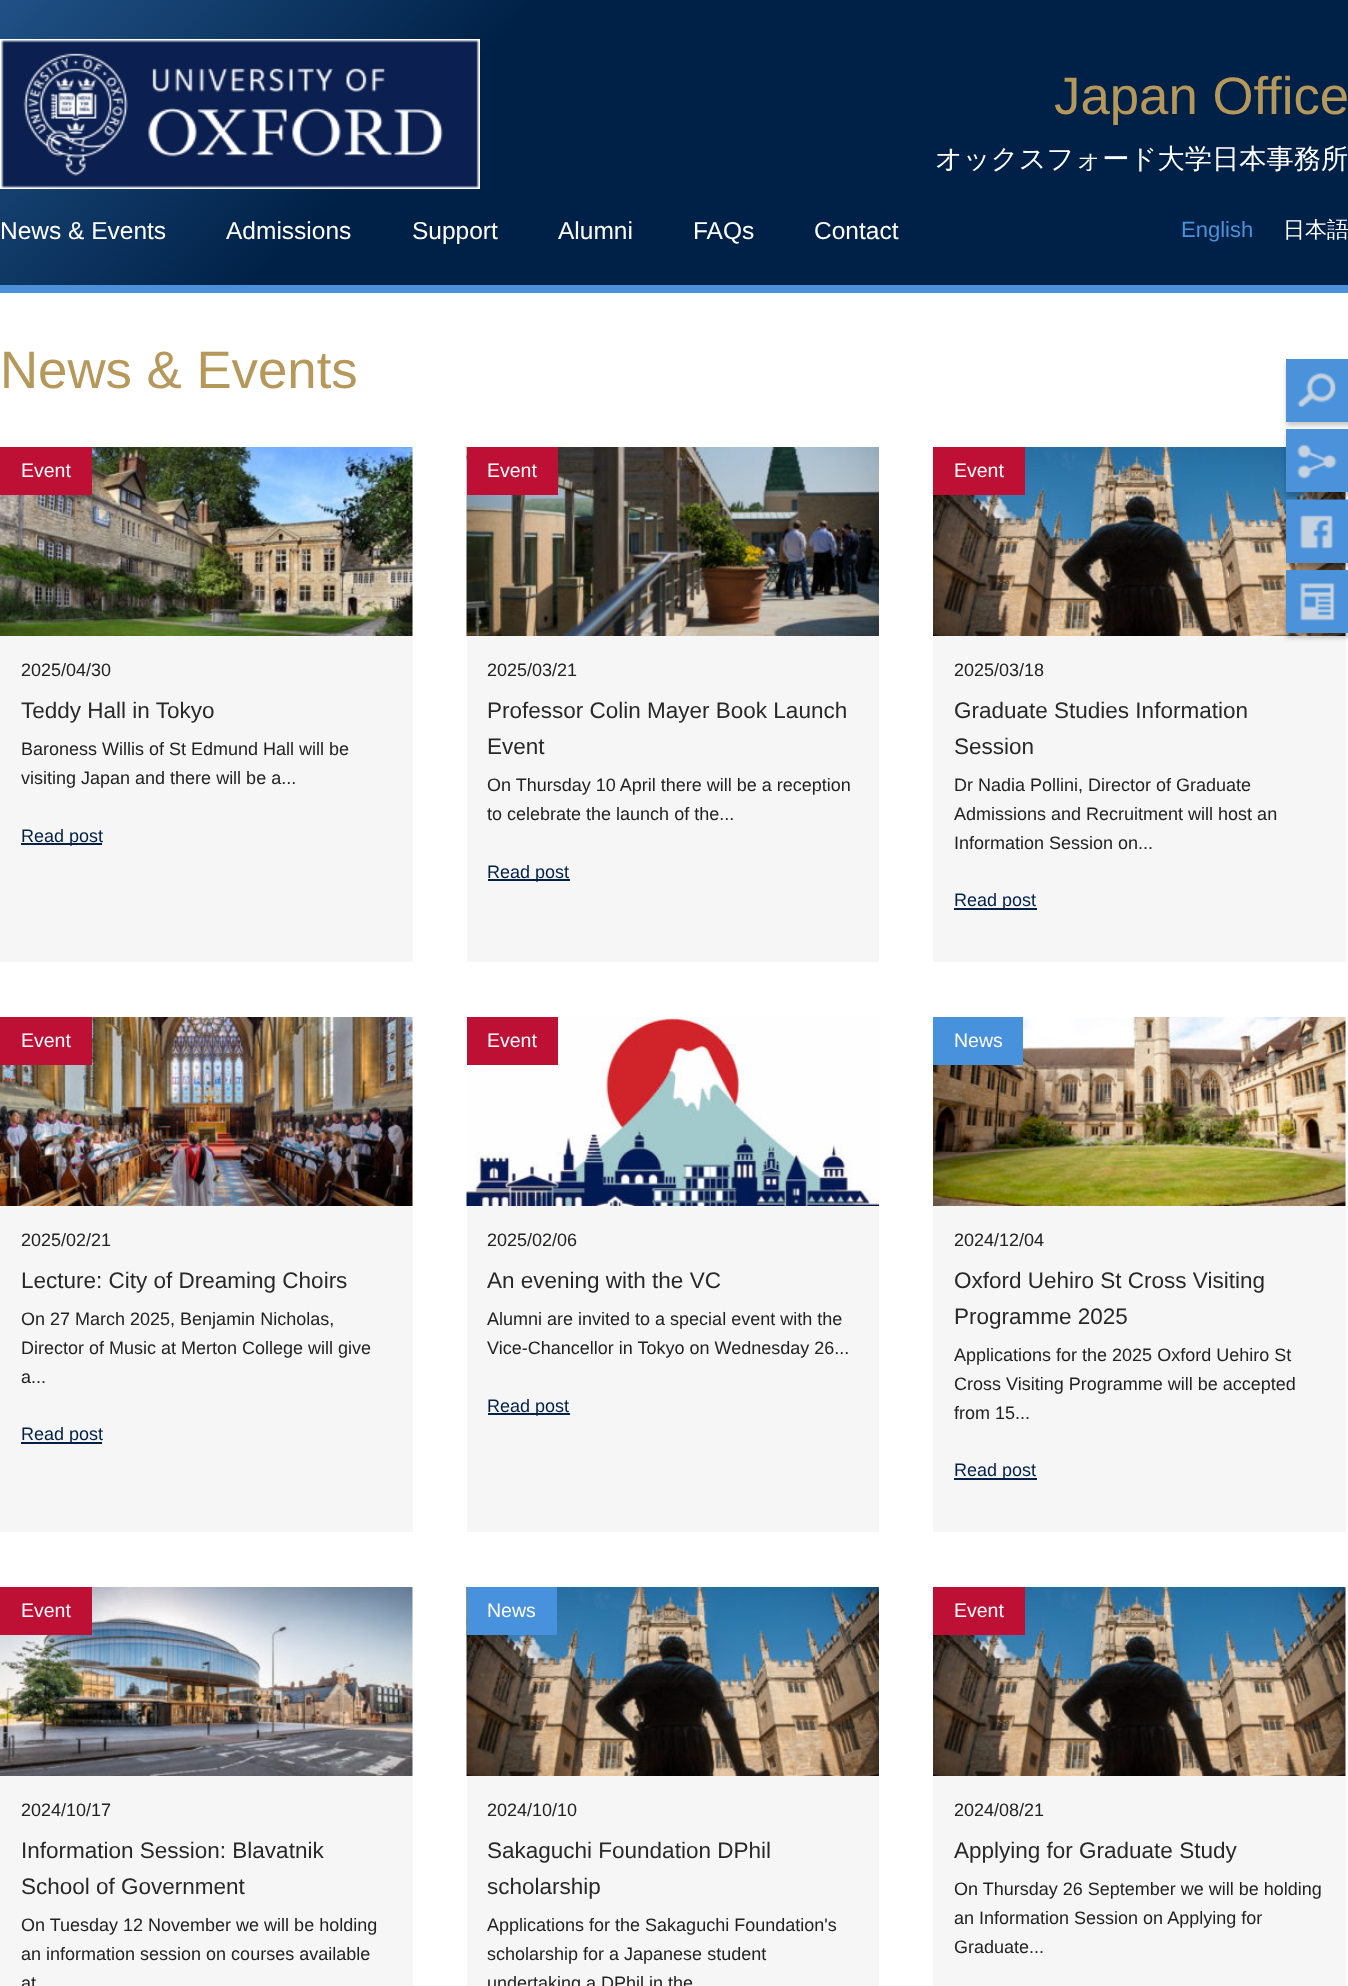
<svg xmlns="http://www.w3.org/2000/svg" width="1348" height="1986">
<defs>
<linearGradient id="g1" gradientUnits="userSpaceOnUse" x1="266" y1="-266" x2="1083" y2="551"><stop offset="0" stop-color="#205186"/><stop offset="0.33" stop-color="#002147"/></linearGradient>
</defs>
<rect width="100%" height="100%" fill="#fff"/>
<rect width="1348" height="285" fill="url(#g1)"/>
<rect y="285" width="1348" height="8" fill="#4b92db"/>
<image x="0" y="39" width="480" height="150" href="media/1.png"/>
<text x="1054" y="114" style="font-family:Liberation Sans;font-size:52.75px;fill:#b5985a">Japan Office</text>
<text x="935" y="168" style="font-family:WenQuanYi Zen Hei;font-size:27.25px;font-weight:500;fill:#fff">オックスフォード大学日本事務所</text>
<text x="0" y="239" style="font-family:Liberation Sans;font-size:24.5px;fill:#fff">News &amp; Events</text>
<text x="226" y="239" style="font-family:Liberation Sans;font-size:24.5px;fill:#fff">Admissions</text>
<text x="412" y="239" style="font-family:Liberation Sans;font-size:24.5px;fill:#fff">Support</text>
<text x="558" y="239" style="font-family:Liberation Sans;font-size:24.5px;fill:#fff">Alumni</text>
<text x="693" y="239" style="font-family:Liberation Sans;font-size:24.5px;fill:#fff">FAQs</text>
<text x="814" y="239" style="font-family:Liberation Sans;font-size:24.5px;fill:#fff">Contact</text>
<text x="1181" y="237" style="font-family:Liberation Sans;font-size:22px;fill:#4b92db">English</text>
<text x="1283" y="237" style="font-family:WenQuanYi Zen Hei;font-size:22px;font-weight:500;fill:#fff">日本語</text>
<text x="0" y="388" style="font-family:Liberation Sans;font-size:52.75px;fill:#b5985a">News &amp; Events</text>
<image x="0" y="447" width="413" height="189" href="media/2.png"/>
<rect y="447" width="92" height="48" fill="#be0f34"/>
<text x="21" y="477" style="font-family:Liberation Sans;font-size:19.5px;fill:#fff">Event</text>
<rect y="636" width="413" height="326" fill="#f6f6f6"/>
<text x="21" y="676" style="font-family:Liberation Sans;font-size:18px;fill:#222">2025/04/30</text>
<text x="21" y="718" style="font-family:Liberation Sans;font-size:22.5px;fill:#282828">Teddy Hall in Tokyo</text>
<text x="21" y="755" style="font-family:Liberation Sans;font-size:18px;fill:#222">Baroness Willis of St Edmund Hall will be</text>
<text x="21" y="784" style="font-family:Liberation Sans;font-size:18px;fill:#222">visiting Japan and there will be a...</text>
<rect x="21" y="843" width="81" height="2" fill="#002047"/>
<text x="21" y="842" style="font-family:Liberation Sans;font-size:18px;fill:#002047">Read post</text>
<image x="466" y="447" width="413" height="189" href="media/3.png"/>
<rect x="467" y="447" width="91" height="48" fill="#be0f34"/>
<text x="487" y="477" style="font-family:Liberation Sans;font-size:19.5px;fill:#fff">Event</text>
<rect x="467" y="636" width="412" height="326" fill="#f6f6f6"/>
<text x="487" y="676" style="font-family:Liberation Sans;font-size:18px;fill:#222">2025/03/21</text>
<text x="487" y="718" style="font-family:Liberation Sans;font-size:22.5px;fill:#282828">Professor Colin Mayer Book Launch</text>
<text x="487" y="754" style="font-family:Liberation Sans;font-size:22.5px;fill:#282828">Event</text>
<text x="487" y="791" style="font-family:Liberation Sans;font-size:18px;fill:#222">On Thursday 10 April there will be a reception</text>
<text x="487" y="820" style="font-family:Liberation Sans;font-size:18px;fill:#222">to celebrate the launch of the...</text>
<rect x="488" y="879" width="82" height="2" fill="#002047"/>
<text x="487" y="878" style="font-family:Liberation Sans;font-size:18px;fill:#002047">Read post</text>
<image x="933" y="447" width="413" height="189" href="media/4.png"/>
<rect x="933" y="447" width="92" height="48" fill="#be0f34"/>
<text x="954" y="477" style="font-family:Liberation Sans;font-size:19.5px;fill:#fff">Event</text>
<rect x="933" y="636" width="413" height="326" fill="#f6f6f6"/>
<text x="954" y="676" style="font-family:Liberation Sans;font-size:18px;fill:#222">2025/03/18</text>
<text x="954" y="718" style="font-family:Liberation Sans;font-size:22.5px;fill:#282828">Graduate Studies Information</text>
<text x="954" y="754" style="font-family:Liberation Sans;font-size:22.5px;fill:#282828">Session</text>
<text x="954" y="791" style="font-family:Liberation Sans;font-size:18px;fill:#222">Dr Nadia Pollini, Director of Graduate</text>
<text x="954" y="820" style="font-family:Liberation Sans;font-size:18px;fill:#222">Admissions and Recruitment will host an</text>
<text x="954" y="849" style="font-family:Liberation Sans;font-size:18px;fill:#222">Information Session on...</text>
<rect x="954" y="908" width="83" height="2" fill="#002047"/>
<text x="954" y="906" style="font-family:Liberation Sans;font-size:18px;fill:#002047">Read post</text>
<image x="0" y="1017" width="413" height="189" href="media/5.png"/>
<rect y="1017" width="92" height="48" fill="#be0f34"/>
<text x="21" y="1047" style="font-family:Liberation Sans;font-size:19.5px;fill:#fff">Event</text>
<rect y="1206" width="413" height="326" fill="#f6f6f6"/>
<text x="21" y="1246" style="font-family:Liberation Sans;font-size:18px;fill:#222">2025/02/21</text>
<text x="21" y="1288" style="font-family:Liberation Sans;font-size:22.5px;fill:#282828">Lecture: City of Dreaming Choirs</text>
<text x="21" y="1325" style="font-family:Liberation Sans;font-size:18px;fill:#222">On 27 March 2025, Benjamin Nicholas,</text>
<text x="21" y="1354" style="font-family:Liberation Sans;font-size:18px;fill:#222">Director of Music at Merton College will give</text>
<text x="21" y="1383" style="font-family:Liberation Sans;font-size:18px;fill:#222">a...</text>
<rect x="21" y="1442" width="81" height="2" fill="#002047"/>
<text x="21" y="1440" style="font-family:Liberation Sans;font-size:18px;fill:#002047">Read post</text>
<image x="466" y="1017" width="413" height="189" href="media/6.png"/>
<rect x="467" y="1017" width="91" height="48" fill="#be0f34"/>
<text x="487" y="1047" style="font-family:Liberation Sans;font-size:19.5px;fill:#fff">Event</text>
<rect x="467" y="1206" width="412" height="326" fill="#f6f6f6"/>
<text x="487" y="1246" style="font-family:Liberation Sans;font-size:18px;fill:#222">2025/02/06</text>
<text x="487" y="1288" style="font-family:Liberation Sans;font-size:22.5px;fill:#282828">An evening with the VC</text>
<text x="487" y="1325" style="font-family:Liberation Sans;font-size:18px;fill:#222">Alumni are invited to a special event with the</text>
<text x="487" y="1354" style="font-family:Liberation Sans;font-size:18px;fill:#222">Vice-Chancellor in Tokyo on Wednesday 26...</text>
<rect x="488" y="1413" width="82" height="2" fill="#002047"/>
<text x="487" y="1412" style="font-family:Liberation Sans;font-size:18px;fill:#002047">Read post</text>
<image x="933" y="1017" width="413" height="189" href="media/7.png"/>
<rect x="933" y="1017" width="90" height="48" fill="#4891dc"/>
<text x="954" y="1047" style="font-family:Liberation Sans;font-size:19.5px;fill:#fff">News</text>
<rect x="933" y="1206" width="413" height="326" fill="#f6f6f6"/>
<text x="954" y="1246" style="font-family:Liberation Sans;font-size:18px;fill:#222">2024/12/04</text>
<text x="954" y="1288" style="font-family:Liberation Sans;font-size:22.5px;fill:#282828">Oxford Uehiro St Cross Visiting</text>
<text x="954" y="1324" style="font-family:Liberation Sans;font-size:22.5px;fill:#282828">Programme 2025</text>
<text x="954" y="1361" style="font-family:Liberation Sans;font-size:18px;fill:#222">Applications for the 2025 Oxford Uehiro St</text>
<text x="954" y="1390" style="font-family:Liberation Sans;font-size:18px;fill:#222">Cross Visiting Programme will be accepted</text>
<text x="954" y="1419" style="font-family:Liberation Sans;font-size:18px;fill:#222">from 15...</text>
<rect x="954" y="1478" width="83" height="2" fill="#002047"/>
<text x="954" y="1476" style="font-family:Liberation Sans;font-size:18px;fill:#002047">Read post</text>
<image x="0" y="1587" width="413" height="189" href="media/8.png"/>
<rect y="1587" width="92" height="48" fill="#be0f34"/>
<text x="21" y="1617" style="font-family:Liberation Sans;font-size:19.5px;fill:#fff">Event</text>
<rect y="1776" width="413" height="210" fill="#f6f6f6"/>
<text x="21" y="1816" style="font-family:Liberation Sans;font-size:18px;fill:#222">2024/10/17</text>
<text x="21" y="1858" style="font-family:Liberation Sans;font-size:22.5px;fill:#282828">Information Session: Blavatnik</text>
<text x="21" y="1894" style="font-family:Liberation Sans;font-size:22.5px;fill:#282828">School of Government</text>
<text x="21" y="1931" style="font-family:Liberation Sans;font-size:18px;fill:#222">On Tuesday 12 November we will be holding</text>
<text x="21" y="1960" style="font-family:Liberation Sans;font-size:18px;fill:#222">an information session on courses available</text>
<text x="21" y="1989" style="font-family:Liberation Sans;font-size:18px;fill:#222">at</text>
<image x="466" y="1587" width="413" height="189" href="media/9.png"/>
<rect x="467" y="1587" width="90" height="48" fill="#4891dc"/>
<text x="487" y="1617" style="font-family:Liberation Sans;font-size:19.5px;fill:#fff">News</text>
<rect x="467" y="1776" width="412" height="210" fill="#f6f6f6"/>
<text x="487" y="1816" style="font-family:Liberation Sans;font-size:18px;fill:#222">2024/10/10</text>
<text x="487" y="1858" style="font-family:Liberation Sans;font-size:22.5px;fill:#282828">Sakaguchi Foundation DPhil</text>
<text x="487" y="1894" style="font-family:Liberation Sans;font-size:22.5px;fill:#282828">scholarship</text>
<text x="487" y="1931" style="font-family:Liberation Sans;font-size:18px;fill:#222">Applications for the Sakaguchi Foundation's</text>
<text x="487" y="1960" style="font-family:Liberation Sans;font-size:18px;fill:#222">scholarship for a Japanese student</text>
<text x="487" y="1989" style="font-family:Liberation Sans;font-size:18px;fill:#222">undertaking a DPhil in the</text>
<image x="933" y="1587" width="413" height="189" href="media/4.png"/>
<rect x="933" y="1587" width="92" height="48" fill="#be0f34"/>
<text x="954" y="1617" style="font-family:Liberation Sans;font-size:19.5px;fill:#fff">Event</text>
<rect x="933" y="1776" width="413" height="210" fill="#f6f6f6"/>
<text x="954" y="1816" style="font-family:Liberation Sans;font-size:18px;fill:#222">2024/08/21</text>
<text x="954" y="1858" style="font-family:Liberation Sans;font-size:22.5px;fill:#282828">Applying for Graduate Study</text>
<text x="954" y="1895" style="font-family:Liberation Sans;font-size:18px;fill:#222">On Thursday 26 September we will be holding</text>
<text x="954" y="1924" style="font-family:Liberation Sans;font-size:18px;fill:#222">an Information Session on Applying for</text>
<text x="954" y="1953" style="font-family:Liberation Sans;font-size:18px;fill:#222">Graduate...</text>
<rect x="1286" y="363" width="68" height="63" fill="#00000033" filter="blur(2px)"/>
<rect x="1286" y="359" width="62" height="63" fill="#4b92db"/>
<image x="1297" y="373" width="39" height="34" href="media/10.png"/>
<rect x="1286" y="434" width="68" height="63" fill="#00000033" filter="blur(2px)"/>
<rect x="1286" y="429" width="62" height="63" fill="#4b92db"/>
<image x="1297" y="444" width="40" height="35" href="media/11.png"/>
<rect x="1286" y="504" width="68" height="63" fill="#00000033" filter="blur(2px)"/>
<rect x="1286" y="549" width="62" height="14" fill="#4b92db"/>
<image x="1286" y="499" width="62" height="50" href="media/12.png"/>
<rect x="1286" y="575" width="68" height="63" fill="#00000033" filter="blur(2px)"/>
<rect x="1286" y="570" width="62" height="63" fill="#4b92db"/>
<image x="1300" y="583" width="35" height="38" href="media/13.png"/>
</svg>
